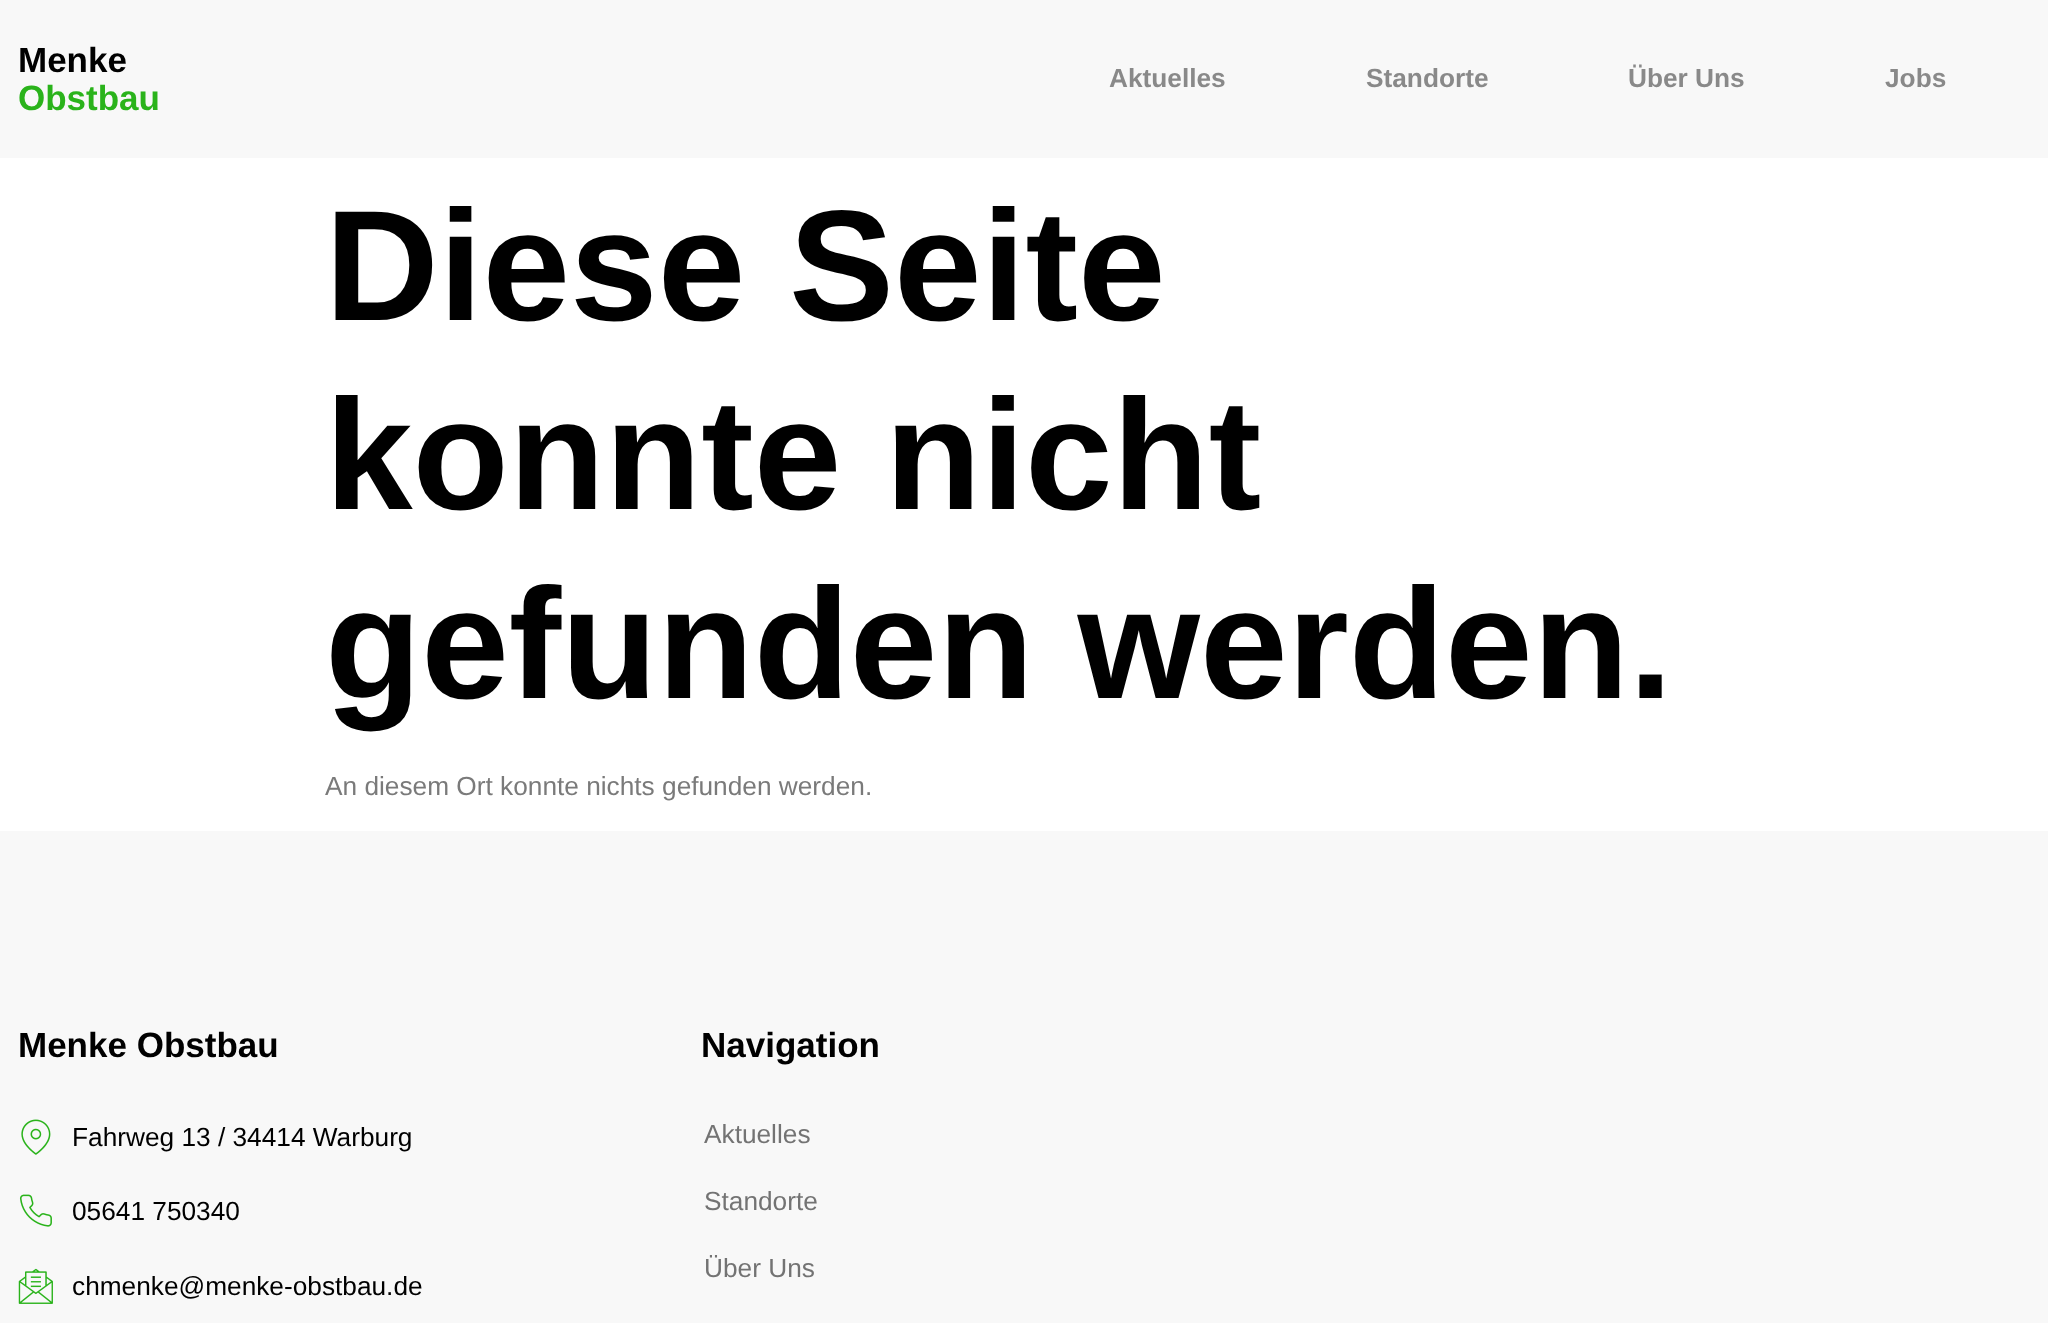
<svg xmlns="http://www.w3.org/2000/svg" width="2048" height="1323">
<rect width="100%" height="100%" fill="#fff"/>
<rect width="2048" height="158" fill="#f8f8f8"/>
<text x="18" y="72" style="font-family:Liberation Sans;font-size:35px;font-weight:bold;fill:#000">Menke</text>
<text x="18" y="110" style="font-family:Liberation Sans;font-size:35px;font-weight:bold;fill:#2ab31b">Obstbau</text>
<text x="1109" y="87" style="font-family:Liberation Sans;font-size:26.25px;font-weight:bold;fill:#898989">Aktuelles</text>
<text x="1366" y="87" style="font-family:Liberation Sans;font-size:26.25px;font-weight:bold;fill:#898989">Standorte</text>
<text x="1628" y="87" style="font-family:Liberation Sans;font-size:26.25px;font-weight:bold;fill:#898989">Über Uns</text>
<text x="1885" y="87" style="font-family:Liberation Sans;font-size:26.25px;font-weight:bold;fill:#898989">Jobs</text>
<text x="325" y="320" style="font-family:Liberation Sans;font-size:157.5px;font-weight:bold;fill:#000">Diese Seite</text>
<text x="325" y="509" style="font-family:Liberation Sans;font-size:157.5px;font-weight:bold;fill:#000">konnte nicht</text>
<text x="325" y="698" style="font-family:Liberation Sans;font-size:157.5px;font-weight:bold;fill:#000">gefunden werden.</text>
<text x="325" y="795" style="font-family:Liberation Sans;font-size:26.25px;fill:#7a7a7a">An diesem Ort konnte nichts gefunden werden.</text>
<rect y="831" width="2048" height="492" fill="#f8f8f8"/>
<text x="18" y="1057" style="font-family:Liberation Sans;font-size:35px;font-weight:bold;fill:#000">Menke Obstbau</text>
<image x="21" y="1119" width="30" height="36" href="media/1.png"/>
<text x="72" y="1146" style="font-family:Liberation Sans;font-size:26.25px;fill:#000">Fahrweg 13 / 34414 Warburg</text>
<image x="19" y="1194" width="33" height="33" href="media/2.png"/>
<text x="72" y="1220" style="font-family:Liberation Sans;font-size:26.25px;fill:#000">05641 750340</text>
<image x="18" y="1268" width="35" height="36" href="media/3.png"/>
<text x="72" y="1295" style="font-family:Liberation Sans;font-size:26.25px;fill:#000">chmenke@menke-obstbau.de</text>
<text x="701" y="1057" style="font-family:Liberation Sans;font-size:35px;font-weight:bold;fill:#000">Navigation</text>
<text x="704" y="1143" style="font-family:Liberation Sans;font-size:26.25px;fill:#737373">Aktuelles</text>
<text x="704" y="1210" style="font-family:Liberation Sans;font-size:26.25px;fill:#737373">Standorte</text>
<text x="704" y="1277" style="font-family:Liberation Sans;font-size:26.25px;fill:#737373">Über Uns</text>
</svg>
